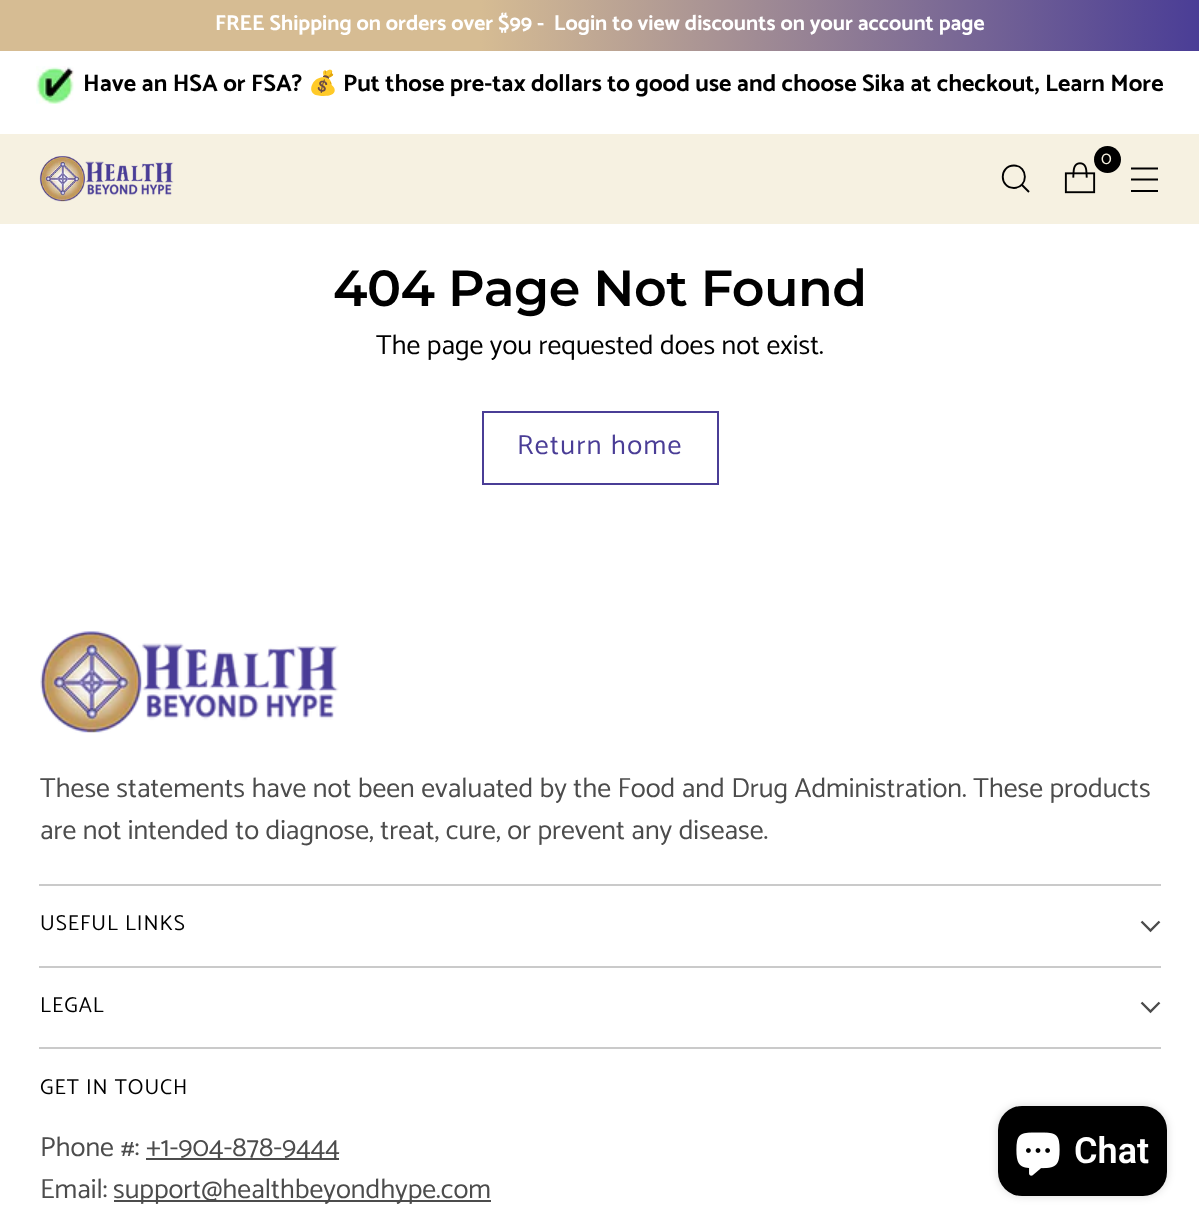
<svg xmlns="http://www.w3.org/2000/svg" width="1199" height="1226">
<defs>
<linearGradient id="g1" gradientUnits="userSpaceOnUse" x1="0" y1="26" x2="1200" y2="25"><stop offset="0.4" stop-color="#d6bc93"/><stop offset="1" stop-color="#4a3d96"/></linearGradient>
</defs>
<rect width="100%" height="100%" fill="#fff"/>
<rect width="1199" height="51" fill="url(#g1)"/>
<text x="215" y="30" style="font-family:Catamaran;font-size:21.55px;font-weight:bold;fill:#fff" xml:space="preserve">FREE Shipping on orders over $99 -  Login to view discounts on your account page</text>
<image x="36" y="66" width="38" height="38" href="media/1.png"/>
<text x="83" y="91" style="font-family:Catamaran;font-size:24px;font-weight:bold;fill:#000">Have an HSA or FSA?</text>
<text x="308" y="91" style="font-family:Noto Color Emoji;font-size:24px;font-weight:bold;fill:#000">💰</text>
<text x="343" y="91" style="font-family:Catamaran;font-size:24px;font-weight:bold;fill:#000">Put those pre-tax dollars to good use and choose Sika at checkout, Learn More</text>
<rect y="134" width="1199" height="90" fill="#f6f1e1"/>
<image x="39" y="156" width="135" height="46" href="media/2.png"/>
<image x="1064" y="162" width="32" height="32" href="media/3.png"/>
<circle cx="1107.5" cy="159.5" r="13.5" fill="#000"/>
<text x="1101" y="164" style="font-family:Catamaran;font-size:18px;fill:#f6f1e1">0</text>
<path d="M1014 188c14.5 0 14.5-22.5 0-22.5c-15 0-15 22.5 0 22.5z" fill="none" stroke="#000" stroke-width="1.9" stroke-linecap="round"/>
<path d="M1022 185l7 7" fill="none" stroke="#000" stroke-width="1.9"/>
<path d="M1131 179.5h27m-27-11h27m-27 22.5h27" fill="none" stroke="#000" stroke-width="1.9"/>
<text x="333" y="306" style="font-family:Montserrat;font-size:50.75px;font-weight:600;letter-spacing:-0.5px;fill:#000">404 Page Not Found</text>
<text x="376" y="354" style="font-family:Catamaran;font-size:27.75px;fill:#000">The page you requested does not exist.</text>
<rect x="483" y="412" width="235" height="72" fill="none" stroke="#4a3d96" stroke-width="2"/>
<text x="517" y="454" style="font-family:Catamaran;font-size:27.75px;letter-spacing:1.4px;fill:#4a3d96">Return home</text>
<rect x="39" y="884" width="1122" height="2" fill="#cacaca"/>
<image x="40" y="631" width="299" height="102" href="media/4.png"/>
<text x="40" y="797" style="font-family:Catamaran;font-size:27.75px;fill:#4c4c4c">These statements have not been evaluated by the Food and Drug Administration. These products</text>
<text x="40" y="839" style="font-family:Catamaran;font-size:27.75px;fill:#4c4c4c">are not intended to diagnose, treat, cure, or prevent any disease.</text>
<rect x="39" y="966" width="1122" height="2" fill="#cacaca"/>
<text x="40" y="930" style="font-family:Catamaran;font-size:21.55px;letter-spacing:1px;fill:#000">USEFUL LINKS</text>
<path d="M1141.5 921.5l9 9l9-9" fill="none" stroke="#4c4c4c" stroke-width="2.4"/>
<rect x="39" y="1047" width="1122" height="2" fill="#cacaca"/>
<text x="40" y="1012" style="font-family:Catamaran;font-size:21.55px;letter-spacing:1px;fill:#000">LEGAL</text>
<path d="M1141.5 1002.5l9 9l9-9" fill="none" stroke="#4c4c4c" stroke-width="2.4"/>
<text x="40" y="1094" style="font-family:Catamaran;font-size:21.55px;letter-spacing:1px;fill:#000">GET IN TOUCH</text>
<text x="40" y="1156" style="font-family:Catamaran;font-size:27.75px;fill:#4c4c4c">Phone #: +1-904-878-9444</text>
<rect x="146" y="1158" width="193" height="2" fill="#4c4c4c"/>
<text x="40" y="1198" style="font-family:Catamaran;font-size:27.75px;fill:#4c4c4c">Email:</text>
<rect x="114" y="1200" width="377" height="2" fill="#4c4c4c"/>
<text x="113" y="1198" style="font-family:Catamaran;font-size:27.75px;fill:#4c4c4c">support@healthbeyondhype.com</text>
<rect x="998" y="1106" width="169" height="90" rx="24" fill="#00000026" filter="blur(4px)"/>
<rect x="998" y="1106" width="169" height="90" rx="24" fill="#000"/>
<image x="1016" y="1132" width="44" height="44" href="media/5.png"/>
<text x="1074" y="1163" style="font-family:Roboto;font-size:36px;font-weight:600;fill:#fff">Chat</text>
</svg>
